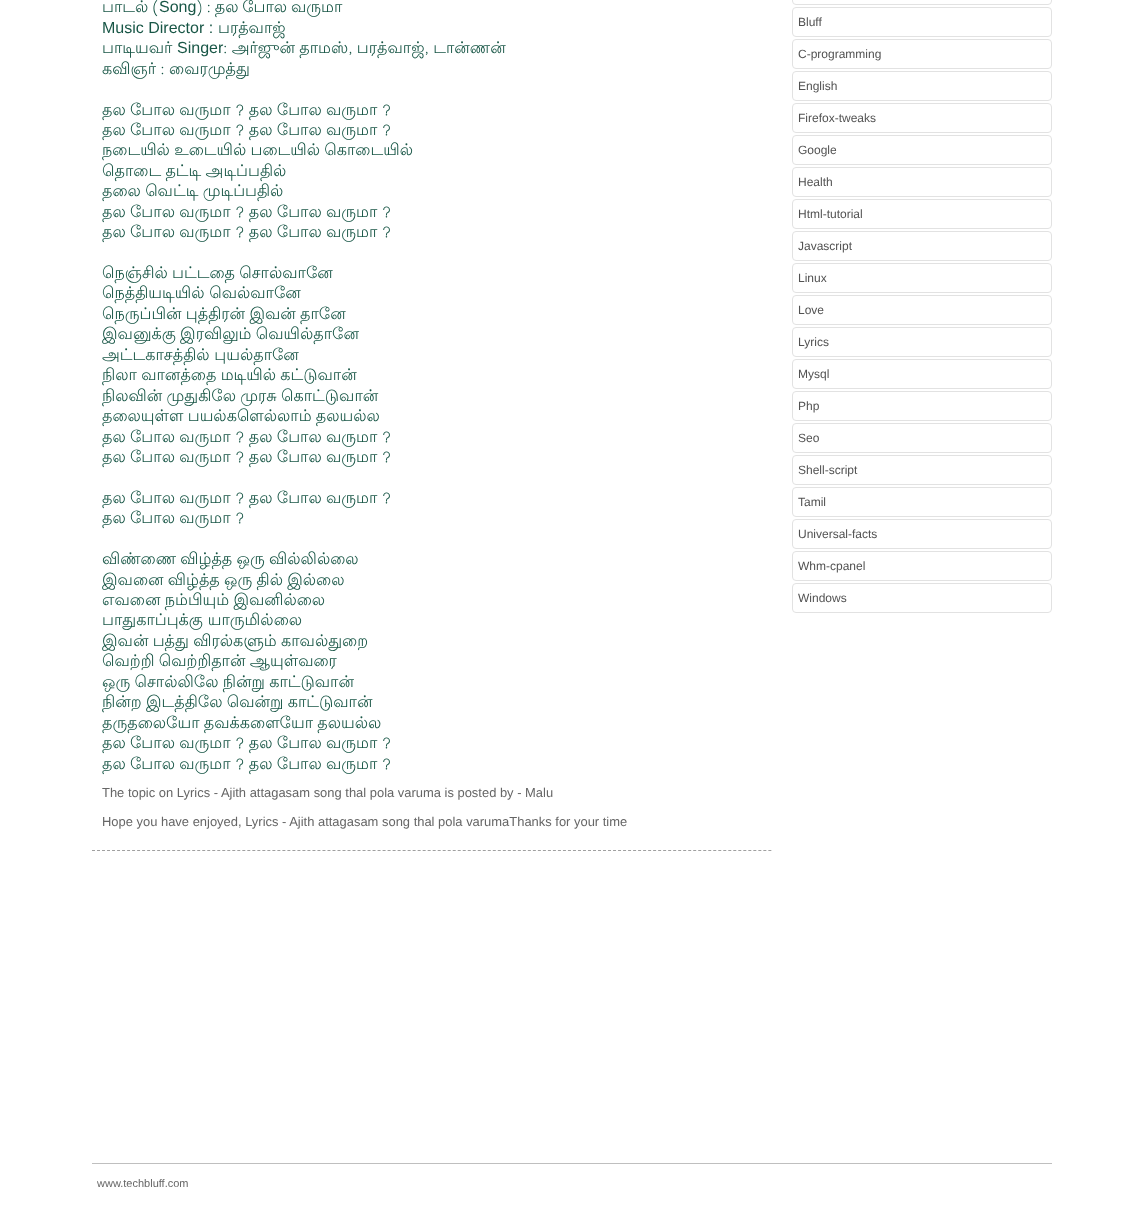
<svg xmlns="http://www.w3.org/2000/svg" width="1144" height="1212">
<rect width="100%" height="100%" fill="#fff"/>
<path d="M92 850.5h680" fill="none" stroke="#a0a0a0" stroke-dasharray="3 2.01"/>
<text x="102" y="12" word-spacing="-1" style="font-family:Lohit Tamil;font-size:16px;fill:#185646">பாடல் (</text>
<text x="159" y="12" style="font-family:Liberation Sans;font-size:16px;fill:#185646">Song</text>
<text x="196" y="12" word-spacing="-1" style="font-family:Lohit Tamil;font-size:16px;fill:#185646">) : தல போல வருமா</text>
<text x="102" y="33" style="font-family:Liberation Sans;font-size:16px;fill:#185646">Music Director :</text>
<text x="218" y="33" style="font-family:Lohit Tamil;font-size:16px;fill:#185646">பரத்வாஜ்</text>
<text x="102" y="53" style="font-family:Lohit Tamil;font-size:16px;fill:#185646">பாடியவர்</text>
<text x="177" y="53" style="font-family:Liberation Sans;font-size:16px;fill:#185646">Singer</text>
<text x="223" y="53" word-spacing="-0.5" style="font-family:Lohit Tamil;font-size:16px;fill:#185646">: அர்ஜுன் தாமஸ், பரத்வாஜ், டான்ணன்</text>
<text x="102" y="74" word-spacing="-0.5" style="font-family:Lohit Tamil;font-size:16px;fill:#185646">கவிஞர் : வைரமுத்து</text>
<text x="102" y="115" word-spacing="-0.5" style="font-family:Lohit Tamil;font-size:16px;fill:#185646">தல போல வருமா ? தல போல வருமா ?</text>
<text x="102" y="135" word-spacing="-0.5" style="font-family:Lohit Tamil;font-size:16px;fill:#185646">தல போல வருமா ? தல போல வருமா ?</text>
<text x="102" y="155" word-spacing="-0.5" style="font-family:Lohit Tamil;font-size:16px;fill:#185646">நடையில் உடையில் படையில் கொடையில்</text>
<text x="102" y="176" word-spacing="-0.5" style="font-family:Lohit Tamil;font-size:16px;fill:#185646">தொடை தட்டி அடிப்பதில்</text>
<text x="102" y="196" word-spacing="-0.5" style="font-family:Lohit Tamil;font-size:16px;fill:#185646">தலை வெட்டி முடிப்பதில்</text>
<text x="102" y="217" word-spacing="-0.5" style="font-family:Lohit Tamil;font-size:16px;fill:#185646">தல போல வருமா ? தல போல வருமா ?</text>
<text x="102" y="237" word-spacing="-0.5" style="font-family:Lohit Tamil;font-size:16px;fill:#185646">தல போல வருமா ? தல போல வருமா ?</text>
<text x="102" y="278" word-spacing="-0.5" style="font-family:Lohit Tamil;font-size:16px;fill:#185646">நெஞ்சில் பட்டதை சொல்வானே</text>
<text x="102" y="298" style="font-family:Lohit Tamil;font-size:16px;fill:#185646">நெத்தியடியில் வெல்வானே</text>
<text x="102" y="319" word-spacing="-0.5" style="font-family:Lohit Tamil;font-size:16px;fill:#185646">நெருப்பின் புத்திரன் இவன் தானே</text>
<text x="102" y="339" word-spacing="-0.5" style="font-family:Lohit Tamil;font-size:16px;fill:#185646">இவனுக்கு இரவிலும் வெயில்தானே</text>
<text x="102" y="360" style="font-family:Lohit Tamil;font-size:16px;fill:#185646">அட்டகாசத்தில் புயல்தானே</text>
<text x="102" y="380" word-spacing="-0.5" style="font-family:Lohit Tamil;font-size:16px;fill:#185646">நிலா வானத்தை மடியில் கட்டுவான்</text>
<text x="102" y="401" word-spacing="-0.5" style="font-family:Lohit Tamil;font-size:16px;fill:#185646">நிலவின் முதுகிலே முரசு கொட்டுவான்</text>
<text x="102" y="421" word-spacing="-0.5" style="font-family:Lohit Tamil;font-size:16px;fill:#185646">தலையுள்ள பயல்களெல்லாம் தலயல்ல</text>
<text x="102" y="442" word-spacing="-0.5" style="font-family:Lohit Tamil;font-size:16px;fill:#185646">தல போல வருமா ? தல போல வருமா ?</text>
<text x="102" y="462" word-spacing="-0.5" style="font-family:Lohit Tamil;font-size:16px;fill:#185646">தல போல வருமா ? தல போல வருமா ?</text>
<text x="102" y="503" word-spacing="-0.5" style="font-family:Lohit Tamil;font-size:16px;fill:#185646">தல போல வருமா ? தல போல வருமா ?</text>
<text x="102" y="523" word-spacing="-0.5" style="font-family:Lohit Tamil;font-size:16px;fill:#185646">தல போல வருமா ?</text>
<text x="102" y="564" word-spacing="-0.5" style="font-family:Lohit Tamil;font-size:16px;fill:#185646">விண்ணை விழ்த்த ஒரு வில்லில்லை</text>
<text x="102" y="585" word-spacing="-0.5" style="font-family:Lohit Tamil;font-size:16px;fill:#185646">இவனை விழ்த்த ஒரு தில் இல்லை</text>
<text x="102" y="605" word-spacing="-0.5" style="font-family:Lohit Tamil;font-size:16px;fill:#185646">எவனை நம்பியும் இவனில்லை</text>
<text x="102" y="625" style="font-family:Lohit Tamil;font-size:16px;fill:#185646">பாதுகாப்புக்கு யாருமில்லை</text>
<text x="102" y="646" word-spacing="-0.5" style="font-family:Lohit Tamil;font-size:16px;fill:#185646">இவன் பத்து விரல்களும் காவல்துறை</text>
<text x="102" y="666" word-spacing="-0.5" style="font-family:Lohit Tamil;font-size:16px;fill:#185646">வெற்றி வெற்றிதான் ஆயுள்வரை</text>
<text x="102" y="687" word-spacing="-0.5" style="font-family:Lohit Tamil;font-size:16px;fill:#185646">ஒரு சொல்லிலே நின்று காட்டுவான்</text>
<text x="102" y="707" word-spacing="-0.5" style="font-family:Lohit Tamil;font-size:16px;fill:#185646">நின்ற இடத்திலே வென்று காட்டுவான்</text>
<text x="102" y="728" word-spacing="-0.5" style="font-family:Lohit Tamil;font-size:16px;fill:#185646">தருதலையோ தவக்களையோ தலயல்ல</text>
<text x="102" y="748" word-spacing="-0.5" style="font-family:Lohit Tamil;font-size:16px;fill:#185646">தல போல வருமா ? தல போல வருமா ?</text>
<text x="102" y="769" word-spacing="-0.5" style="font-family:Lohit Tamil;font-size:16px;fill:#185646">தல போல வருமா ? தல போல வருமா ?</text>
<text x="102" y="797" style="font-family:Liberation Sans;font-size:12.95px;fill:#666">The topic on Lyrics - Ajith attagasam song thal pola varuma is posted by - Malu</text>
<text x="102" y="826" style="font-family:Liberation Sans;font-size:12.95px;fill:#666">Hope you have enjoyed, Lyrics - Ajith attagasam song thal pola varumaThanks for your time</text>
<rect x="792.5" y="-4.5" width="259" height="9" rx="3.5" fill="none" stroke="#e2e2e2"/>
<rect x="792.5" y="7.5" width="259" height="29" rx="3.5" fill="none" stroke="#e2e2e2"/>
<text x="798" y="26" style="font-family:Liberation Sans;font-size:12px;fill:#525252">Bluff</text>
<rect x="792.5" y="39.5" width="259" height="29" rx="3.5" fill="none" stroke="#e2e2e2"/>
<text x="798" y="58" style="font-family:Liberation Sans;font-size:12px;fill:#525252">C-programming</text>
<rect x="792.5" y="71.5" width="259" height="29" rx="3.5" fill="none" stroke="#e2e2e2"/>
<text x="798" y="90" style="font-family:Liberation Sans;font-size:12px;fill:#525252">English</text>
<rect x="792.5" y="103.5" width="259" height="29" rx="3.5" fill="none" stroke="#e2e2e2"/>
<text x="798" y="122" style="font-family:Liberation Sans;font-size:12px;fill:#525252">Firefox-tweaks</text>
<rect x="792.5" y="135.5" width="259" height="29" rx="3.5" fill="none" stroke="#e2e2e2"/>
<text x="798" y="154" style="font-family:Liberation Sans;font-size:12px;fill:#525252">Google</text>
<rect x="792.5" y="167.5" width="259" height="29" rx="3.5" fill="none" stroke="#e2e2e2"/>
<text x="798" y="186" style="font-family:Liberation Sans;font-size:12px;fill:#525252">Health</text>
<rect x="792.5" y="199.5" width="259" height="29" rx="3.5" fill="none" stroke="#e2e2e2"/>
<text x="798" y="218" style="font-family:Liberation Sans;font-size:12px;fill:#525252">Html-tutorial</text>
<rect x="792.5" y="231.5" width="259" height="29" rx="3.5" fill="none" stroke="#e2e2e2"/>
<text x="798" y="250" style="font-family:Liberation Sans;font-size:12px;fill:#525252">Javascript</text>
<rect x="792.5" y="263.5" width="259" height="29" rx="3.5" fill="none" stroke="#e2e2e2"/>
<text x="798" y="282" style="font-family:Liberation Sans;font-size:12px;fill:#525252">Linux</text>
<rect x="792.5" y="295.5" width="259" height="29" rx="3.5" fill="none" stroke="#e2e2e2"/>
<text x="798" y="314" style="font-family:Liberation Sans;font-size:12px;fill:#525252">Love</text>
<rect x="792.5" y="327.5" width="259" height="29" rx="3.5" fill="none" stroke="#e2e2e2"/>
<text x="798" y="346" style="font-family:Liberation Sans;font-size:12px;fill:#525252">Lyrics</text>
<rect x="792.5" y="359.5" width="259" height="29" rx="3.5" fill="none" stroke="#e2e2e2"/>
<text x="798" y="378" style="font-family:Liberation Sans;font-size:12px;fill:#525252">Mysql</text>
<rect x="792.5" y="391.5" width="259" height="29" rx="3.5" fill="none" stroke="#e2e2e2"/>
<text x="798" y="410" style="font-family:Liberation Sans;font-size:12px;fill:#525252">Php</text>
<rect x="792.5" y="423.5" width="259" height="29" rx="3.5" fill="none" stroke="#e2e2e2"/>
<text x="798" y="442" style="font-family:Liberation Sans;font-size:12px;fill:#525252">Seo</text>
<rect x="792.5" y="455.5" width="259" height="29" rx="3.5" fill="none" stroke="#e2e2e2"/>
<text x="798" y="474" style="font-family:Liberation Sans;font-size:12px;fill:#525252">Shell-script</text>
<rect x="792.5" y="487.5" width="259" height="29" rx="3.5" fill="none" stroke="#e2e2e2"/>
<text x="798" y="506" style="font-family:Liberation Sans;font-size:12px;fill:#525252">Tamil</text>
<rect x="792.5" y="519.5" width="259" height="29" rx="3.5" fill="none" stroke="#e2e2e2"/>
<text x="798" y="538" style="font-family:Liberation Sans;font-size:12px;fill:#525252">Universal-facts</text>
<rect x="792.5" y="551.5" width="259" height="29" rx="3.5" fill="none" stroke="#e2e2e2"/>
<text x="798" y="570" style="font-family:Liberation Sans;font-size:12px;fill:#525252">Whm-cpanel</text>
<rect x="792.5" y="583.5" width="259" height="29" rx="3.5" fill="none" stroke="#e2e2e2"/>
<text x="798" y="602" style="font-family:Liberation Sans;font-size:12px;fill:#525252">Windows</text>
<rect x="92" y="1163" width="960" height="1" fill="#bfbfbf"/>
<text x="97" y="1187" style="font-family:Liberation Sans;font-size:11px;fill:#666">www.techbluff.com</text>
</svg>
